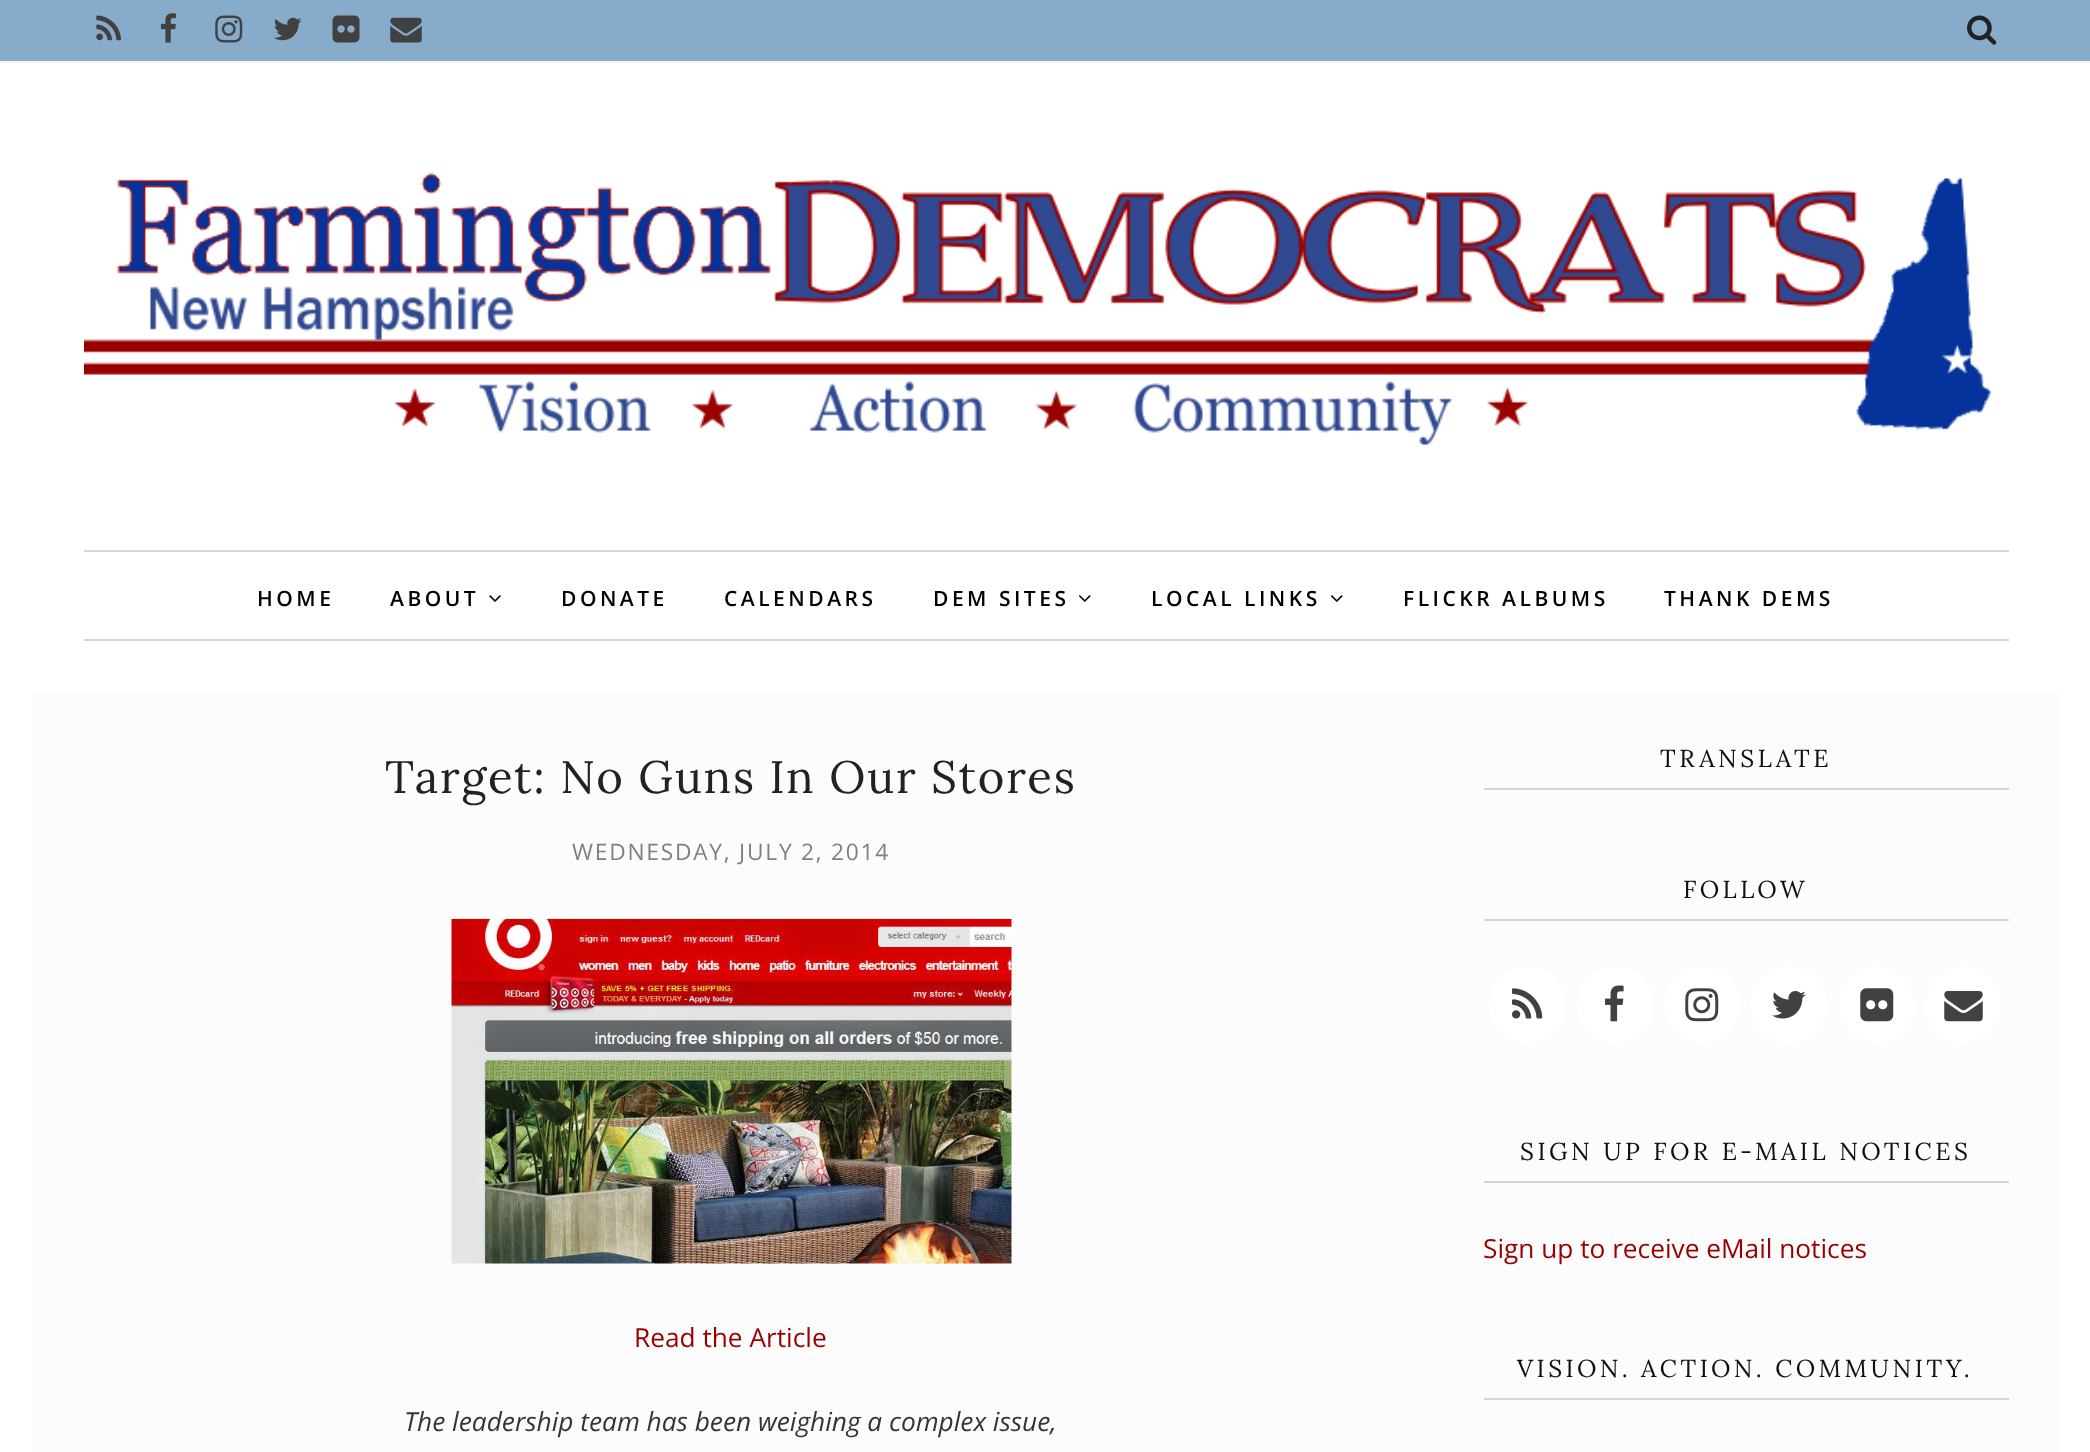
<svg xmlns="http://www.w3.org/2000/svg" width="2090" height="1452">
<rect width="100%" height="100%" fill="#fff"/>
<rect width="2090" height="61" fill="#87abcb"/>
<rect y="61" width="2090" height="2" fill="#fcefea"/>
<image x="96" y="15" width="25" height="26" href="media/1.png"/>
<image x="160" y="13" width="17" height="30" href="media/2.png"/>
<image x="215" y="15" width="28" height="28" href="media/3.png"/>
<image x="274" y="17" width="28" height="24" href="media/4.png"/>
<image x="332" y="15" width="28" height="28" href="media/5.png"/>
<image x="390" y="17" width="32" height="26" href="media/6.png"/>
<image x="1967" y="15" width="30" height="30" href="media/7.png"/>
<image x="84" y="172" width="1908" height="273" href="media/8.png"/>
<rect x="84" y="550" width="1925" height="2" fill="#d5d5d5"/>
<rect x="84" y="639" width="1925" height="2" fill="#d5d5d5"/>
<text x="257" y="606" style="font-family:Open Sans;font-size:21px;font-weight:600;letter-spacing:3.5px;fill:#000">HOME</text>
<text x="390" y="606" style="font-family:Open Sans;font-size:21px;font-weight:600;letter-spacing:3.5px;fill:#000">ABOUT</text>
<image x="489" y="595" width="12" height="7" href="media/9.png"/>
<text x="561" y="606" style="font-family:Open Sans;font-size:21px;font-weight:600;letter-spacing:3.5px;fill:#000">DONATE</text>
<text x="724" y="606" style="font-family:Open Sans;font-size:21px;font-weight:600;letter-spacing:3.5px;fill:#000">CALENDARS</text>
<text x="933" y="606" style="font-family:Open Sans;font-size:21px;font-weight:600;letter-spacing:3.5px;fill:#000">DEM SITES</text>
<image x="1079" y="595" width="12" height="7" href="media/10.png"/>
<text x="1151" y="606" style="font-family:Open Sans;font-size:21px;font-weight:600;letter-spacing:3.5px;fill:#000">LOCAL LINKS</text>
<image x="1331" y="595" width="12" height="7" href="media/10.png"/>
<text x="1403" y="606" style="font-family:Open Sans;font-size:21px;font-weight:600;letter-spacing:3.5px;fill:#000">FLICKR ALBUMS</text>
<text x="1664" y="606" style="font-family:Open Sans;font-size:21px;font-weight:600;letter-spacing:3.5px;fill:#000">THANK DEMS</text>
<rect x="32" y="693" width="2030" height="759" fill="#fcfcfc"/>
<text x="385" y="793" style="font-family:Lora;font-size:45.5px;letter-spacing:1.75px;fill:#222">Target: No Guns In Our Stores</text>
<text x="572" y="860" style="font-family:Open Sans;font-size:22.75px;letter-spacing:1.75px;fill:#808080">WEDNESDAY, JULY 2, 2014</text>
<image x="451" y="918" width="561" height="346" href="media/11.png"/>
<text x="634" y="1347" style="font-family:Open Sans;font-size:26.25px;fill:#900">Read the Article</text>
<text x="404" y="1431" style="font-family:Open Sans;font-size:26.25px;font-style:italic;fill:#353535">The leadership team has been weighing a complex issue,</text>
<rect x="1484" y="788" width="525" height="2" fill="#d5d5d5"/>
<text x="1660" y="767" style="font-family:Lora;font-size:24.5px;letter-spacing:3.5px;fill:#101010">TRANSLATE</text>
<rect x="1484" y="919" width="525" height="2" fill="#d5d5d5"/>
<text x="1683" y="898" style="font-family:Lora;font-size:24.5px;letter-spacing:3.5px;fill:#101010">FOLLOW</text>
<circle cx="1527.5" cy="1004.5" r="38.5" fill="#fff"/>
<image x="1512" y="988" width="31" height="31" href="media/12.png"/>
<circle cx="1615.5" cy="1004.5" r="38.5" fill="#fff"/>
<image x="1605" y="985" width="19" height="37" href="media/13.png"/>
<circle cx="1702.5" cy="1004.5" r="38.5" fill="#fff"/>
<image x="1685" y="988" width="34" height="34" href="media/14.png"/>
<circle cx="1788.5" cy="1004.5" r="38.5" fill="#fff"/>
<image x="1772" y="991" width="34" height="28" href="media/15.png"/>
<circle cx="1876.5" cy="1004.5" r="38.5" fill="#fff"/>
<image x="1860" y="988" width="34" height="34" href="media/16.png"/>
<circle cx="1963.5" cy="1004.5" r="38.5" fill="#fff"/>
<image x="1944" y="991" width="39" height="31" href="media/17.png"/>
<rect x="1484" y="1181" width="525" height="2" fill="#d5d5d5"/>
<text x="1520" y="1160" style="font-family:Lora;font-size:24.5px;letter-spacing:3.5px;fill:#101010">SIGN UP FOR E-MAIL NOTICES</text>
<text x="1483" y="1258" style="font-family:Open Sans;font-size:26.25px;fill:#900">Sign up to receive eMail notices</text>
<rect x="1484" y="1398" width="525" height="2" fill="#d5d5d5"/>
<text x="1517" y="1377" style="font-family:Lora;font-size:24.5px;letter-spacing:3.5px;fill:#101010">VISION. ACTION. COMMUNITY.</text>
</svg>
